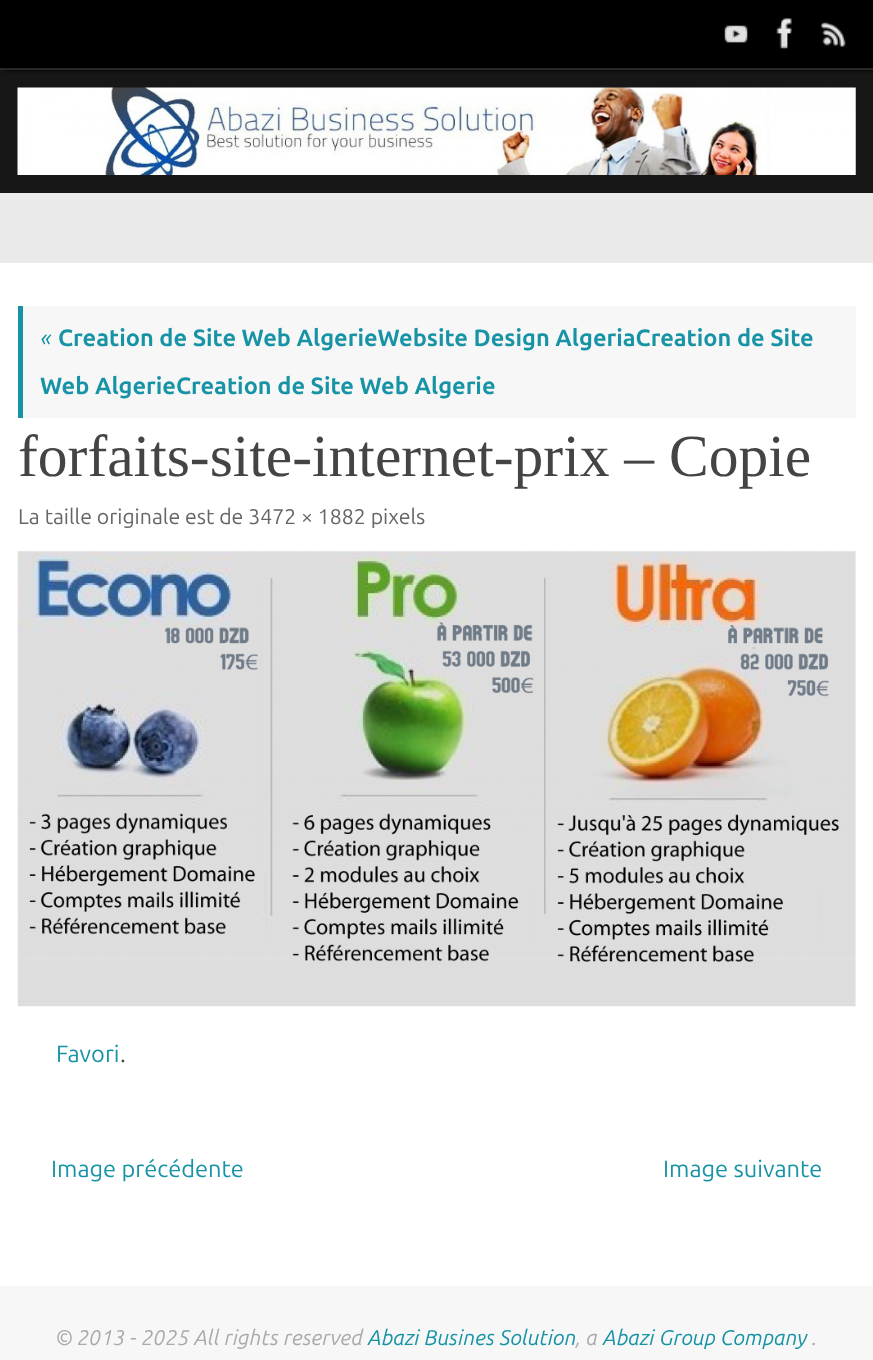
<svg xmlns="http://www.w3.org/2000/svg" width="873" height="1360">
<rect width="100%" height="100%" fill="#171717"/>
<rect x="5" width="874" height="70" fill="#000" filter="blur(2.5px)"/>
<rect width="873" height="68" fill="#000"/>
<rect y="68" width="873" height="2" fill="#282828"/>
<image x="724" y="25" width="24" height="18" href="media/1.png"/>
<image x="776" y="18" width="16" height="31" href="media/2.png"/>
<image x="821" y="22" width="25" height="25" href="media/3.png"/>
<image x="17" y="87" width="839" height="88" href="media/4.png"/>
<rect y="193" width="873" height="70" fill="#eaeaea"/>
<rect y="263" width="873" height="1023" fill="#fff"/>
<rect x="23" y="306" width="833" height="112" fill="#f7f7f7"/>
<rect x="18" y="306" width="5" height="112" fill="#1693a5"/>
<text x="40" y="346" style="font-family:Ubuntu;font-size:23.6px;font-style:italic;fill:#1693a5">«</text>
<text x="58" y="346" style="font-family:Ubuntu;font-size:23.6px;font-weight:bold;fill:#1693a5">Creation de Site Web AlgerieWebsite Design AlgeriaCreation de Site</text>
<text x="40" y="394" style="font-family:Ubuntu;font-size:23.6px;font-weight:bold;fill:#1693a5">Web AlgerieCreation de Site Web Algerie</text>
<text x="18" y="476" style="font-family:Liberation Serif;font-size:59.5px;fill:#444">forfaits-site-internet-prix – Copie</text>
<text x="18" y="524" style="font-family:Ubuntu;font-size:21.25px;fill:#666">La taille originale est de 3472 × 1882 pixels</text>
<image x="17" y="551" width="839" height="456" href="media/5.png"/>
<text x="56" y="1062" style="font-family:Ubuntu;font-size:23.6px;fill:#1693a5">Favori</text>
<text x="120" y="1062" style="font-family:Ubuntu;font-size:23.6px;fill:#444">.</text>
<text x="51" y="1177" style="font-family:Ubuntu;font-size:23.6px;fill:#1693a5">Image précédente</text>
<text x="663" y="1177" style="font-family:Ubuntu;font-size:23.6px;fill:#1693a5">Image suivante</text>
<rect y="1286" width="873" height="74" fill="#f7f7f7"/>
<text x="56" y="1345" style="font-family:Ubuntu;font-size:21.25px;font-style:italic;fill:#aaa">© 2013 - 2025 All rights reserved</text>
<text x="368" y="1345" style="font-family:Ubuntu;font-size:21.25px;font-style:italic;fill:#1693a5">Abazi Busines Solution</text>
<text x="576" y="1345" style="font-family:Ubuntu;font-size:21.25px;font-style:italic;fill:#aaa">, a</text>
<text x="603" y="1345" style="font-family:Ubuntu;font-size:21.25px;font-style:italic;fill:#1693a5">Abazi Group Company</text>
<text x="812" y="1345" style="font-family:Ubuntu;font-size:21.25px;font-style:italic;fill:#aaa">.</text>
</svg>
